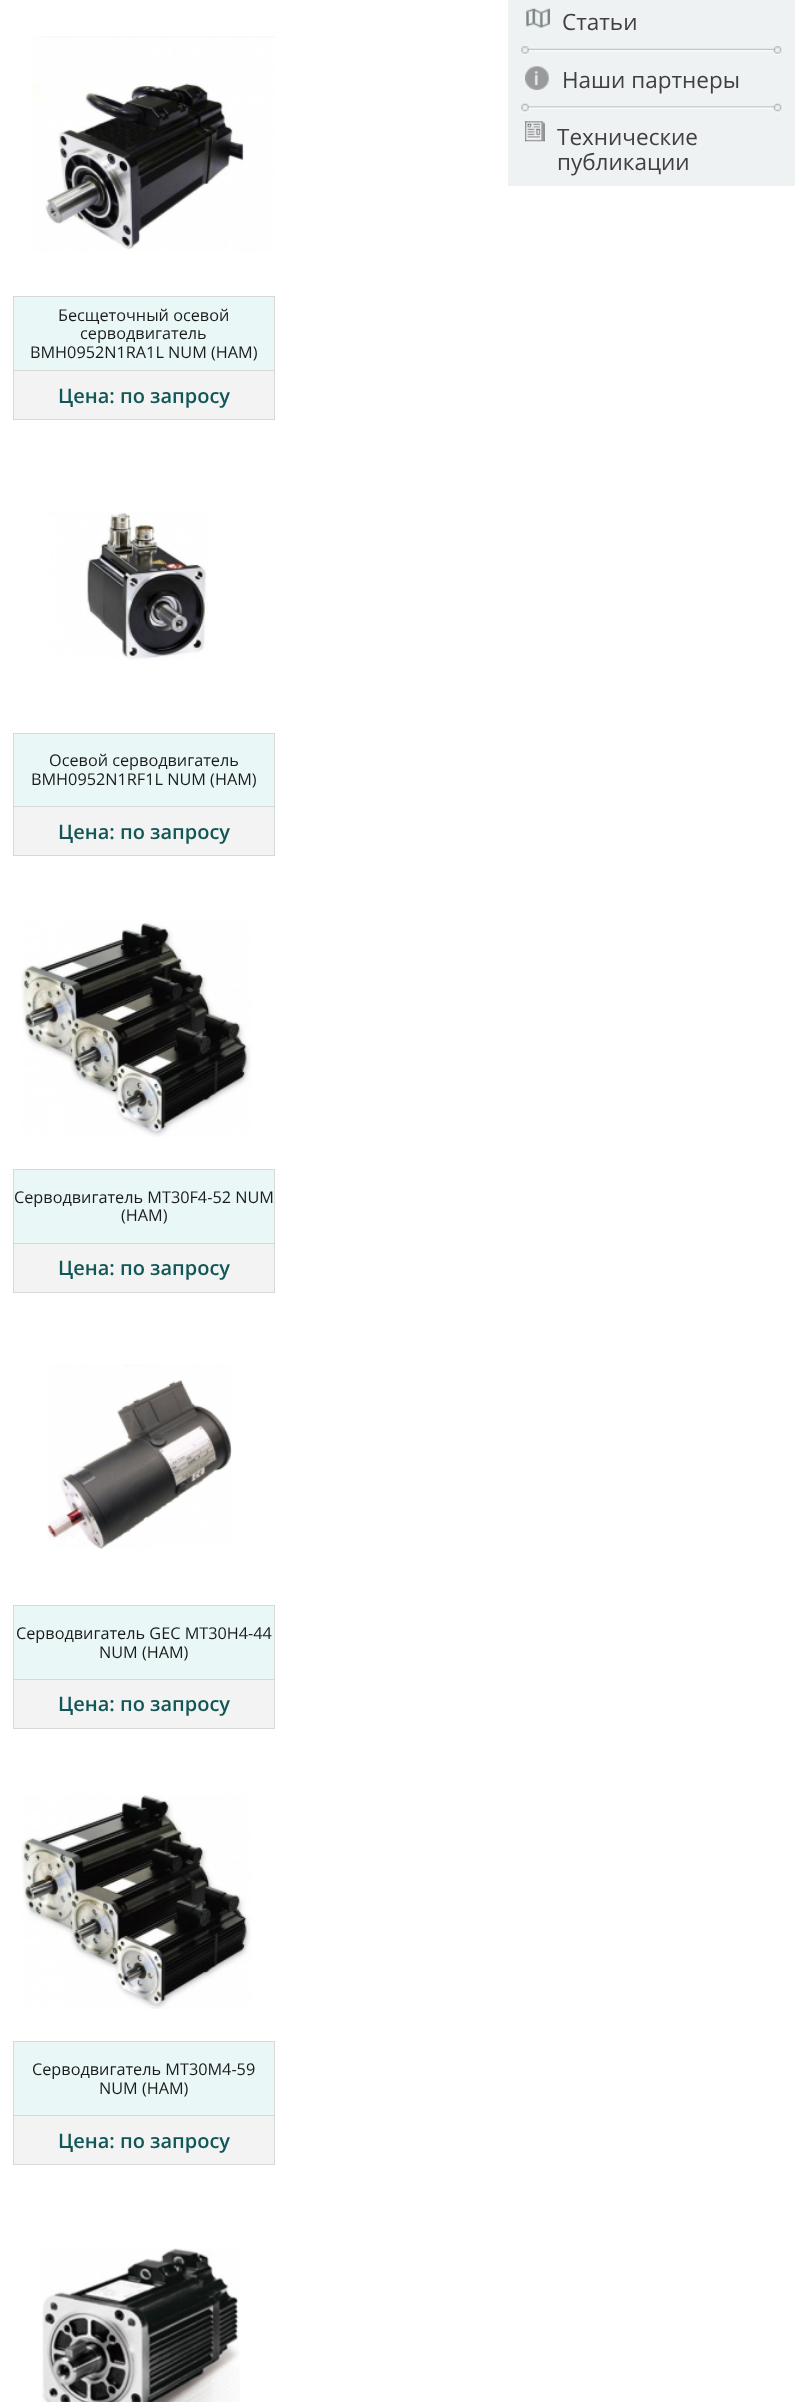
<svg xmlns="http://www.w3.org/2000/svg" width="795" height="2402">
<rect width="100%" height="100%" fill="#fff"/>
<rect x="508" width="287" height="186" fill="#eff2f2"/>
<image x="526" y="8" width="24" height="20" href="media/1.png"/>
<text x="562" y="30" style="font-family:Open Sans;font-size:22.5px;fill:#414040">Статьи</text>
<image x="521" y="46" width="261" height="9" href="media/2.png"/>
<image x="525" y="66" width="24" height="24" href="media/3.png"/>
<text x="562" y="88" style="font-family:Open Sans;font-size:22.5px;fill:#414040">Наши партнеры</text>
<image x="521" y="103" width="261" height="10" href="media/4.png"/>
<image x="525" y="121" width="20" height="21" href="media/5.png"/>
<text x="557" y="145" style="font-family:Open Sans;font-size:22.5px;fill:#414040">Технические</text>
<text x="557" y="170" style="font-family:Open Sans;font-size:22.5px;fill:#414040">публикации</text>
<image x="31" y="36" width="244" height="216" href="media/6.png"/>
<rect x="13.5" y="296.5" width="261" height="123" fill="#f3f3f3" stroke="#d6d9d9"/>
<rect x="14" y="298" width="260" height="72" fill="#e9f7f7"/>
<text x="58" y="321" style="font-family:Open Sans;font-size:16.25px;fill:#1b1b1b">Бесщеточный осевой</text>
<text x="80" y="339" style="font-family:Open Sans;font-size:16.25px;fill:#1b1b1b">серводвигатель</text>
<text x="30" y="358" style="font-family:Open Sans;font-size:16.25px;fill:#1b1b1b">BMH0952N1RA1L NUM (НАМ)</text>
<rect x="14" y="370" width="260" height="1" fill="#d6d9d9"/>
<text x="58" y="403" style="font-family:Open Sans;font-size:20px;font-weight:600;fill:#115757">Цена: по запросу</text>
<image x="51" y="511" width="157" height="149" href="media/7.png"/>
<rect x="14" y="807" width="260" height="48" fill="#f3f3f3"/>
<rect x="13.5" y="733.5" width="261" height="122" fill="none" stroke="#d6d9d9"/>
<rect x="14" y="734" width="260" height="72" fill="#e9f7f7"/>
<text x="49" y="766" style="font-family:Open Sans;font-size:16.25px;fill:#1b1b1b">Осевой серводвигатель</text>
<text x="31" y="785" style="font-family:Open Sans;font-size:16.25px;fill:#1b1b1b">BMH0952N1RF1L NUM (НАМ)</text>
<rect x="14" y="806" width="260" height="1" fill="#d6d9d9"/>
<text x="58" y="839" style="font-family:Open Sans;font-size:20px;font-weight:600;fill:#115757">Цена: по запросу</text>
<image x="20" y="922" width="232" height="215" href="media/8.png"/>
<rect x="14" y="1244" width="260" height="48" fill="#f3f3f3"/>
<rect x="13.5" y="1169.5" width="261" height="123" fill="none" stroke="#d6d9d9"/>
<rect x="14" y="1170" width="260" height="73" fill="#e9f7f7"/>
<text x="14" y="1203" style="font-family:Open Sans;font-size:16.25px;fill:#1b1b1b">Серводвигатель MT30F4-52 NUM</text>
<text x="121" y="1221" style="font-family:Open Sans;font-size:16.25px;fill:#1b1b1b">(НАМ)</text>
<rect x="14" y="1243" width="260" height="1" fill="#d6d9d9"/>
<text x="58" y="1275" style="font-family:Open Sans;font-size:20px;font-weight:600;fill:#115757">Цена: по запросу</text>
<image x="47" y="1364" width="185" height="185" href="media/9.png"/>
<rect x="14" y="1680" width="260" height="48" fill="#f3f3f3"/>
<rect x="13.5" y="1605.5" width="261" height="123" fill="none" stroke="#d6d9d9"/>
<rect x="14" y="1606" width="260" height="73" fill="#e9f7f7"/>
<text x="16" y="1639" style="font-family:Open Sans;font-size:16.25px;fill:#1b1b1b">Серводвигатель GEC MT30H4-44</text>
<text x="99" y="1658" style="font-family:Open Sans;font-size:16.25px;fill:#1b1b1b">NUM (НАМ)</text>
<rect x="14" y="1679" width="260" height="1" fill="#d6d9d9"/>
<text x="58" y="1711" style="font-family:Open Sans;font-size:20px;font-weight:600;fill:#115757">Цена: по запросу</text>
<image x="21" y="1795" width="231" height="214" href="media/10.png"/>
<rect x="13.5" y="2041.5" width="261" height="123" fill="#f3f3f3" stroke="#d6d9d9"/>
<rect x="14" y="2043" width="260" height="72" fill="#e9f7f7"/>
<text x="32" y="2075" style="font-family:Open Sans;font-size:16.25px;fill:#1b1b1b">Серводвигатель MT30M4-59</text>
<text x="99" y="2094" style="font-family:Open Sans;font-size:16.25px;fill:#1b1b1b">NUM (НАМ)</text>
<rect x="14" y="2115" width="260" height="1" fill="#d6d9d9"/>
<text x="58" y="2148" style="font-family:Open Sans;font-size:20px;font-weight:600;fill:#115757">Цена: по запросу</text>
<image x="41" y="2248" width="199" height="154" href="media/11.png"/>
</svg>
